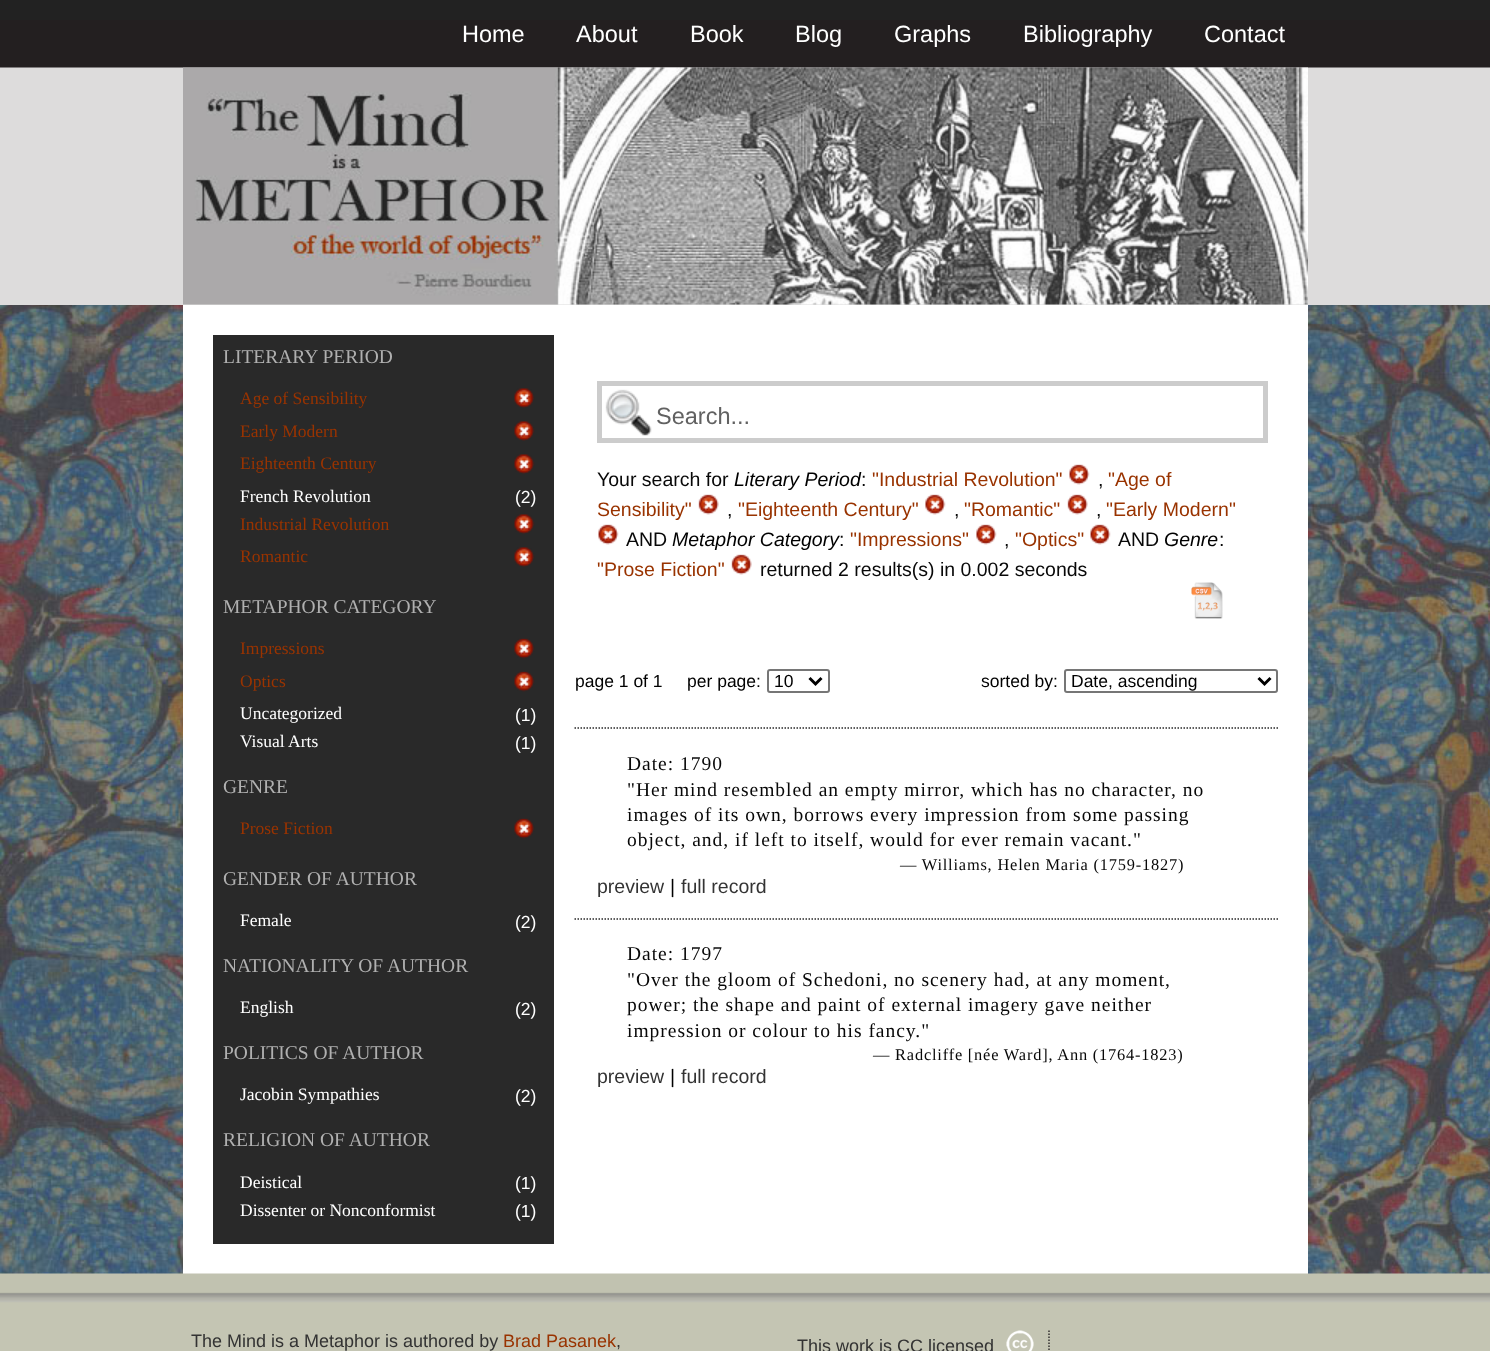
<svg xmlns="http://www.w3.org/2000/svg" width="1490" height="1351">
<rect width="100%" height="100%" fill="#222"/>
<rect y="20" width="1490" height="47" fill="#231f20"/>
<text x="462" y="42" style="font-family:Liberation Sans;font-size:23.5px;fill:#fff">Home</text>
<text x="576" y="42" style="font-family:Liberation Sans;font-size:23.5px;fill:#fff">About</text>
<text x="690" y="42" style="font-family:Liberation Sans;font-size:23.5px;fill:#fff">Book</text>
<text x="795" y="42" style="font-family:Liberation Sans;font-size:23.5px;fill:#fff">Blog</text>
<text x="894" y="42" style="font-family:Liberation Sans;font-size:23.5px;fill:#fff">Graphs</text>
<text x="1023" y="42" style="font-family:Liberation Sans;font-size:23.5px;fill:#fff">Bibliography</text>
<text x="1204" y="42" style="font-family:Liberation Sans;font-size:23.5px;fill:#fff">Contact</text>
<rect y="68" width="1490" height="237" fill="#dddcdc"/>
<rect y="67" width="1490" height="1" fill="#807d7e"/>
<image x="183" y="67" width="1125" height="238" href="media/1.png"/>
<image x="0" y="305" width="1490" height="969" href="media/2.png"/>
<rect x="183" y="305" width="1125" height="969" fill="#fff"/>
<rect x="213" y="335" width="341" height="909" fill="#292929"/>
<text x="223" y="363" style="font-family:Liberation Serif;font-size:19.5px;fill:#b0b0b0">LITERARY PERIOD</text>
<text x="240" y="404" style="font-family:Liberation Serif;font-size:17.5px;fill:#930">Age of Sensibility</text>
<image x="514" y="388" width="21" height="20" href="media/3.png"/>
<text x="240" y="437" style="font-family:Liberation Serif;font-size:17.5px;fill:#930">Early Modern</text>
<image x="514" y="421" width="21" height="20" href="media/3.png"/>
<text x="240" y="469" style="font-family:Liberation Serif;font-size:17.5px;fill:#930">Eighteenth Century</text>
<image x="514" y="454" width="21" height="20" href="media/3.png"/>
<text x="240" y="502" style="font-family:Liberation Serif;font-size:17.5px;fill:#fff">French Revolution</text>
<text x="515" y="503" style="font-family:Liberation Sans;font-size:17.5px;fill:#fff">(2)</text>
<text x="240" y="530" style="font-family:Liberation Serif;font-size:17.5px;fill:#930">Industrial Revolution</text>
<image x="514" y="514" width="21" height="20" href="media/3.png"/>
<text x="240" y="562" style="font-family:Liberation Serif;font-size:17.5px;fill:#930">Romantic</text>
<image x="514" y="547" width="21" height="20" href="media/3.png"/>
<text x="223" y="613" style="font-family:Liberation Serif;font-size:19.5px;fill:#b0b0b0">METAPHOR CATEGORY</text>
<text x="240" y="654" style="font-family:Liberation Serif;font-size:17.5px;fill:#930">Impressions</text>
<image x="514" y="638" width="21" height="21" href="media/4.png"/>
<text x="240" y="687" style="font-family:Liberation Serif;font-size:17.5px;fill:#930">Optics</text>
<image x="514" y="671" width="21" height="21" href="media/4.png"/>
<text x="240" y="719" style="font-family:Liberation Serif;font-size:17.5px;fill:#fff">Uncategorized</text>
<text x="515" y="721" style="font-family:Liberation Sans;font-size:17.5px;fill:#fff">(1)</text>
<text x="240" y="747" style="font-family:Liberation Serif;font-size:17.5px;fill:#fff">Visual Arts</text>
<text x="515" y="749" style="font-family:Liberation Sans;font-size:17.5px;fill:#fff">(1)</text>
<text x="223" y="793" style="font-family:Liberation Serif;font-size:19.5px;fill:#b0b0b0">GENRE</text>
<text x="240" y="834" style="font-family:Liberation Serif;font-size:17.5px;fill:#930">Prose Fiction</text>
<image x="514" y="818" width="21" height="21" href="media/4.png"/>
<text x="223" y="885" style="font-family:Liberation Serif;font-size:19.5px;fill:#b0b0b0">GENDER OF AUTHOR</text>
<text x="240" y="926" style="font-family:Liberation Serif;font-size:17.5px;fill:#fff">Female</text>
<text x="515" y="928" style="font-family:Liberation Sans;font-size:17.5px;fill:#fff">(2)</text>
<text x="223" y="972" style="font-family:Liberation Serif;font-size:19.5px;fill:#b0b0b0">NATIONALITY OF AUTHOR</text>
<text x="240" y="1013" style="font-family:Liberation Serif;font-size:17.5px;fill:#fff">English</text>
<text x="515" y="1015" style="font-family:Liberation Sans;font-size:17.5px;fill:#fff">(2)</text>
<text x="223" y="1059" style="font-family:Liberation Serif;font-size:19.5px;fill:#b0b0b0">POLITICS OF AUTHOR</text>
<text x="240" y="1100" style="font-family:Liberation Serif;font-size:17.5px;fill:#fff">Jacobin Sympathies</text>
<text x="515" y="1102" style="font-family:Liberation Sans;font-size:17.5px;fill:#fff">(2)</text>
<text x="223" y="1146" style="font-family:Liberation Serif;font-size:19.5px;fill:#b0b0b0">RELIGION OF AUTHOR</text>
<text x="240" y="1188" style="font-family:Liberation Serif;font-size:17.5px;fill:#fff">Deistical</text>
<text x="515" y="1189" style="font-family:Liberation Sans;font-size:17.5px;fill:#fff">(1)</text>
<text x="240" y="1216" style="font-family:Liberation Serif;font-size:17.5px;fill:#fff">Dissenter or Nonconformist</text>
<text x="515" y="1217" style="font-family:Liberation Sans;font-size:17.5px;fill:#fff">(1)</text>
<image x="605" y="389" width="47" height="47" href="media/5.png"/>
<rect x="599.5" y="383.5" width="666" height="57" fill="none" stroke="#ccc" stroke-width="5"/>
<text x="656" y="424" style="font-family:Liberation Sans;font-size:23.5px;fill:#616161">Search...</text>
<text x="597" y="486" style="font-family:Liberation Sans;font-size:19.5px;fill:#080808">Your search for</text>
<text x="734" y="486" style="font-family:Liberation Sans;font-size:19.5px;font-style:italic;fill:#000">Literary Period</text>
<text x="861" y="486" style="font-family:Liberation Sans;font-size:19.5px;fill:#080808">:</text>
<text x="872" y="486" style="font-family:Liberation Sans;font-size:19.5px;fill:#930">"Industrial Revolution"</text>
<image x="1069" y="464" width="21" height="21" href="media/6.png"/>
<text x="1098" y="486" style="font-family:Liberation Sans;font-size:19.5px;fill:#080808">,</text>
<text x="1108" y="486" style="font-family:Liberation Sans;font-size:19.5px;fill:#930">"Age of</text>
<text x="597" y="516" style="font-family:Liberation Sans;font-size:19.5px;fill:#930">Sensibility"</text>
<image x="698" y="494" width="21" height="21" href="media/7.png"/>
<text x="727" y="516" style="font-family:Liberation Sans;font-size:19.5px;fill:#080808">,</text>
<text x="738" y="516" style="font-family:Liberation Sans;font-size:19.5px;fill:#930">"Eighteenth Century"</text>
<image x="925" y="494" width="21" height="21" href="media/8.png"/>
<text x="954" y="516" style="font-family:Liberation Sans;font-size:19.5px;fill:#080808">,</text>
<text x="964" y="516" style="font-family:Liberation Sans;font-size:19.5px;fill:#930">"Romantic"</text>
<image x="1067" y="494" width="21" height="21" href="media/9.png"/>
<text x="1096" y="516" style="font-family:Liberation Sans;font-size:19.5px;fill:#080808">,</text>
<text x="1106" y="516" style="font-family:Liberation Sans;font-size:19.5px;fill:#930">"Early Modern"</text>
<image x="598" y="524" width="21" height="21" href="media/6.png"/>
<text x="626" y="546" style="font-family:Liberation Sans;font-size:19.5px;fill:#080808">AND</text>
<text x="672" y="546" style="font-family:Liberation Sans;font-size:19.5px;font-style:italic;fill:#000">Metaphor Category</text>
<text x="839" y="546" style="font-family:Liberation Sans;font-size:19.5px;fill:#080808">:</text>
<text x="850" y="546" style="font-family:Liberation Sans;font-size:19.5px;fill:#930">"Impressions"</text>
<image x="976" y="524" width="21" height="21" href="media/8.png"/>
<text x="1004" y="546" style="font-family:Liberation Sans;font-size:19.5px;fill:#080808">,</text>
<text x="1015" y="546" style="font-family:Liberation Sans;font-size:19.5px;fill:#930">"Optics"</text>
<image x="1090" y="524" width="21" height="21" href="media/6.png"/>
<text x="1118" y="546" style="font-family:Liberation Sans;font-size:19.5px;fill:#080808">AND</text>
<text x="1164" y="546" style="font-family:Liberation Sans;font-size:19.5px;font-style:italic;fill:#000">Genre</text>
<text x="1219" y="546" style="font-family:Liberation Sans;font-size:19.5px;fill:#080808">:</text>
<text x="597" y="576" style="font-family:Liberation Sans;font-size:19.5px;fill:#930">"Prose Fiction"</text>
<image x="731" y="554" width="21" height="21" href="media/7.png"/>
<text x="760" y="576" style="font-family:Liberation Sans;font-size:19.5px;fill:#080808">returned 2 results(s) in 0.002 seconds</text>
<image x="1191" y="582" width="32" height="37" href="media/10.png"/>
<text x="575" y="687" style="font-family:Liberation Sans;font-size:17.5px;fill:#000">page 1 of 1</text>
<text x="687" y="687" style="font-family:Liberation Sans;font-size:17.5px;fill:#000">per page:</text>
<rect x="768" y="670" width="61" height="22" rx="2" fill="none" stroke="#767676" stroke-width="2"/>
<path d="M809.5 678l6 6l6-6" fill="none" stroke="#000" stroke-width="3"/>
<text x="774" y="687" style="font-family:Liberation Sans;font-size:17.5px;fill:#000">10</text>
<text x="981" y="687" style="font-family:Liberation Sans;font-size:17.5px;fill:#000">sorted by:</text>
<rect x="1065" y="670" width="212" height="22" rx="2" fill="none" stroke="#767676" stroke-width="2"/>
<path d="M1258.5 678l6 6l6-6" fill="none" stroke="#000" stroke-width="3"/>
<text x="1071" y="687" style="font-family:Liberation Sans;font-size:17.5px;fill:#000">Date, ascending</text>
<path d="M574.5 728h703.5" fill="none" stroke="#292929" stroke-width="1.5" stroke-dasharray="1.5 1.5"/>
<text x="627" y="770" style="font-family:Liberation Serif;font-size:19.5px;letter-spacing:0.98px;fill:#080808">Date: 1790</text>
<text x="627" y="796" style="font-family:Liberation Serif;font-size:19.5px;letter-spacing:0.98px;fill:#080808">"Her mind resembled an empty mirror, which has no character, no</text>
<text x="627" y="821" style="font-family:Liberation Serif;font-size:19.5px;letter-spacing:0.98px;fill:#080808">images of its own, borrows every impression from some passing</text>
<text x="627" y="846" style="font-family:Liberation Serif;font-size:19.5px;letter-spacing:0.98px;fill:#080808">object, and, if left to itself, would for ever remain vacant."</text>
<text x="900" y="870" style="font-family:Liberation Serif;font-size:16.4px;letter-spacing:0.8px;fill:#080808">— Williams, Helen Maria (1759-1827)</text>
<text x="597" y="893" style="font-family:Liberation Sans;font-size:19.5px;fill:#333">preview</text>
<text x="670" y="893" style="font-family:Liberation Sans;font-size:19.5px;fill:#000">|</text>
<text x="681" y="893" style="font-family:Liberation Sans;font-size:19.5px;fill:#333">full record</text>
<path d="M574.5 919h703.5" fill="none" stroke="#292929" stroke-width="1.5" stroke-dasharray="1.5 1.5"/>
<text x="627" y="960" style="font-family:Liberation Serif;font-size:19.5px;letter-spacing:0.98px;fill:#080808">Date: 1797</text>
<text x="627" y="986" style="font-family:Liberation Serif;font-size:19.5px;letter-spacing:0.98px;fill:#080808">"Over the gloom of Schedoni, no scenery had, at any moment,</text>
<text x="627" y="1011" style="font-family:Liberation Serif;font-size:19.5px;letter-spacing:0.98px;fill:#080808">power; the shape and paint of external imagery gave neither</text>
<text x="627" y="1037" style="font-family:Liberation Serif;font-size:19.5px;letter-spacing:0.98px;fill:#080808">impression or colour to his fancy."</text>
<text x="873" y="1060" style="font-family:Liberation Serif;font-size:16.4px;letter-spacing:0.8px;fill:#080808">— Radcliffe [née Ward], Ann (1764-1823)</text>
<text x="597" y="1083" style="font-family:Liberation Sans;font-size:19.5px;fill:#333">preview</text>
<text x="670" y="1083" style="font-family:Liberation Sans;font-size:19.5px;fill:#000">|</text>
<text x="681" y="1083" style="font-family:Liberation Sans;font-size:19.5px;fill:#333">full record</text>
<image x="0" y="1273" width="1490" height="78" href="media/11.png"/>
<text x="191" y="1347" style="font-family:Liberation Sans;font-size:18px;fill:#333">The Mind is a Metaphor is authored by</text>
<text x="503" y="1347" style="font-family:Liberation Sans;font-size:18px;fill:#930">Brad Pasanek</text>
<text x="616" y="1347" style="font-family:Liberation Sans;font-size:18px;fill:#333">,</text>
<text x="797" y="1352" style="font-family:Liberation Sans;font-size:18px;fill:#333">This work is CC licensed</text>
<image x="1006" y="1330" width="28" height="21" href="media/12.png"/>
<path d="M1049 1330.5v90" fill="none" stroke="#333132" stroke-width="1.5" stroke-dasharray="1.5 1.5"/>
</svg>
